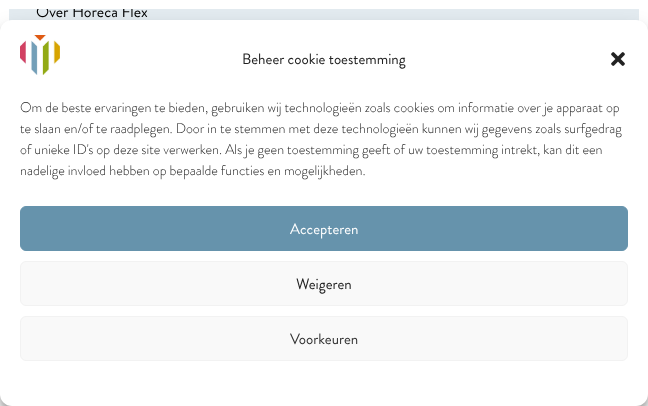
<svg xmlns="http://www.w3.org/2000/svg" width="648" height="406">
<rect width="100%" height="100%" fill="#e3ebf0"/>
<rect width="9" height="406" fill="#fff"/>
<text x="36" y="17" style="font-family:Brandon Grotesque;font-size:16px;fill:#000">Over Horeca Flex</text>
<rect x="9" width="630" height="9" fill="#fff"/>
<rect x="639" width="9" height="397" fill="#fff"/>
<rect x="9" y="397" width="639" height="9" fill="#fff"/>
<rect y="26" width="648" height="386" rx="12" fill="#0000003b" filter="blur(3px)"/>
<rect y="30" width="648" height="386" rx="12" fill="#00000030" filter="blur(10px)"/>
<rect y="20" width="648" height="386" rx="12" fill="#fff"/>
<image x="20" y="35" width="40" height="40" href="media/1.png"/>
<text x="242" y="64" style="font-family:Brandon Grotesque;font-size:15px;fill:#222">Beheer cookie toestemming</text>
<image x="611" y="52" width="14" height="14" href="media/2.png"/>
<text x="20" y="112" style="font-family:Brandon Grotesque;font-size:14px;font-weight:300;fill:#222">Om de beste ervaringen te bieden, gebruiken wij technologieën zoals cookies om informatie over je apparaat op</text>
<text x="20" y="133" style="font-family:Brandon Grotesque;font-size:14px;font-weight:300;fill:#222">te slaan en/of te raadplegen. Door in te stemmen met deze technologieën kunnen wij gegevens zoals surfgedrag</text>
<text x="20" y="154" style="font-family:Brandon Grotesque;font-size:14px;font-weight:300;fill:#222">of unieke ID's op deze site verwerken. Als je geen toestemming geeft of uw toestemming intrekt, kan dit een</text>
<text x="20" y="175" style="font-family:Brandon Grotesque;font-size:14px;font-weight:300;fill:#222">nadelige invloed hebben op bepaalde functies en mogelijkheden.</text>
<rect x="20.5" y="206.5" width="607" height="44" rx="5.5" fill="#6693ac" stroke="#6693ac"/>
<text x="290" y="234" style="font-family:Brandon Grotesque;font-size:15px;fill:#fff">Accepteren</text>
<rect x="20.5" y="261.5" width="607" height="44" rx="5.5" fill="#f9f9f9" stroke="#f2f2f2"/>
<text x="296" y="289" style="font-family:Brandon Grotesque;font-size:15px;fill:#222">Weigeren</text>
<rect x="20.5" y="316.5" width="607" height="44" rx="5.5" fill="#f9f9f9" stroke="#f2f2f2"/>
<text x="290" y="344" style="font-family:Brandon Grotesque;font-size:15px;fill:#333">Voorkeuren</text>
</svg>
